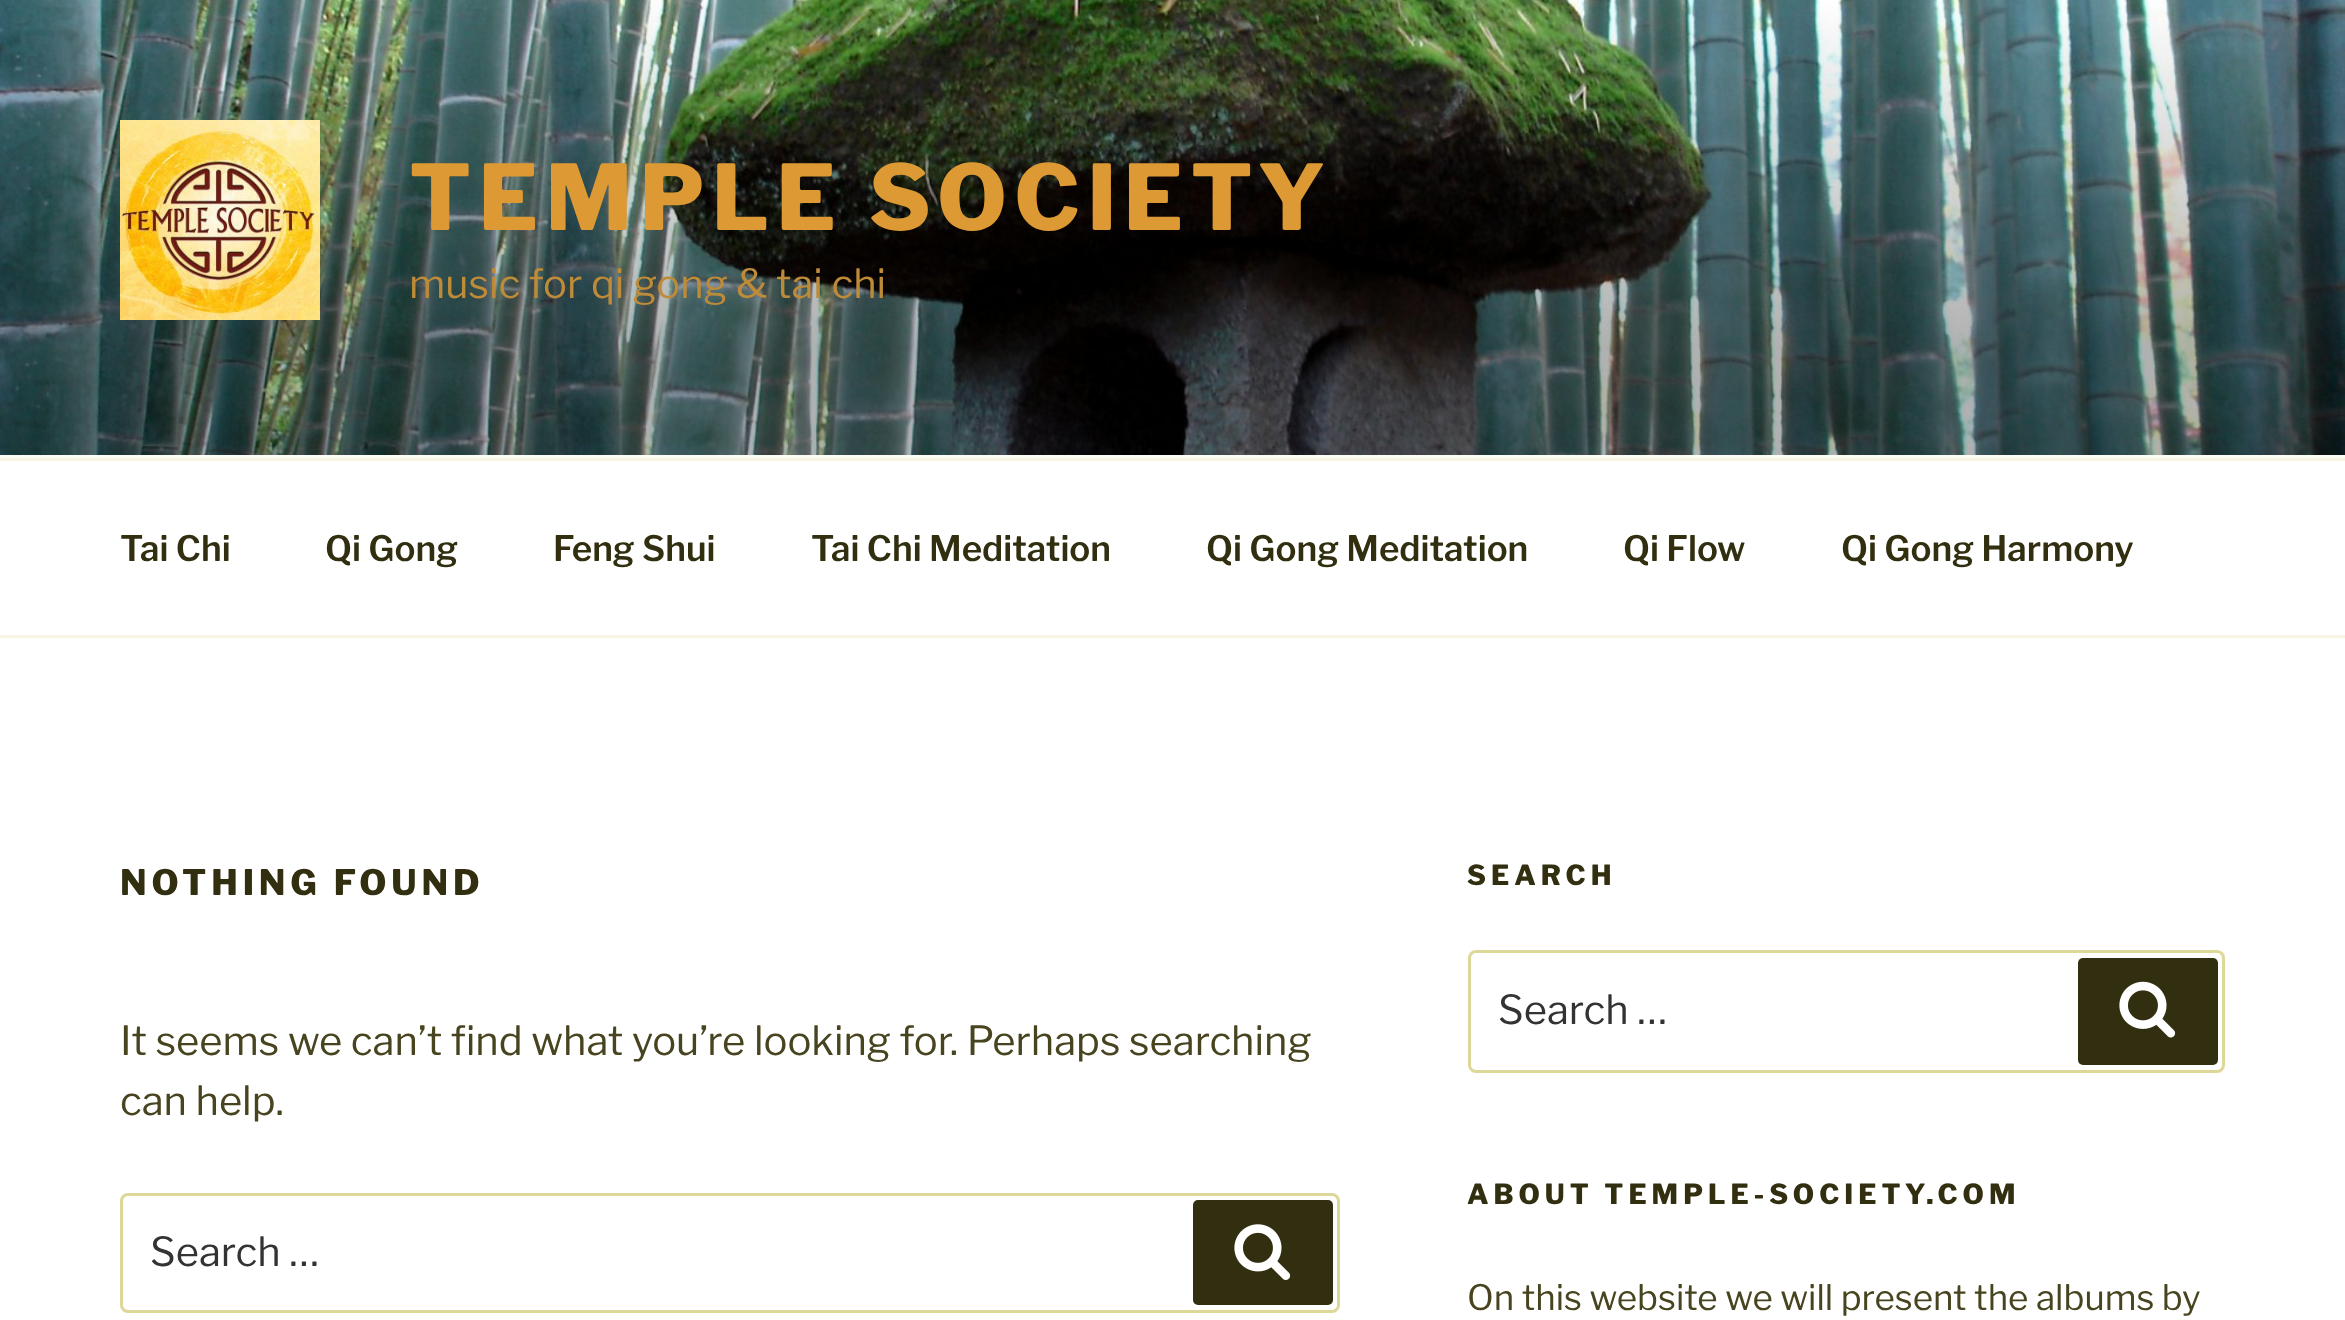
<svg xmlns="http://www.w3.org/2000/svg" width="2345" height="1320">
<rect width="100%" height="100%" fill="#fff"/>
<rect y="455" width="2345" height="3" fill="#fcfcf7"/>
<image x="0" y="0" width="2345" height="455" href="media/1.png"/>
<image x="120" y="120" width="200" height="200" href="media/2.png"/>
<text x="409" y="230" style="font-family:Libre Franklin;font-size:90px;font-weight:100;letter-spacing:7.25px;fill:#d93">TEMPLE SOCIETY</text>
<text x="409" y="298" style="font-family:'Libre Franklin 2';font-size:40px;font-weight:100;fill:#be8b39">music for qi gong &amp; tai chi</text>
<rect y="458" width="2345" height="3" fill="#f6f5e4"/>
<rect y="635" width="2345" height="3" fill="#f6f5e4"/>
<text x="120" y="561" style="font-family:'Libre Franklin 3';font-size:35px;font-weight:100;fill:#322f11">Tai Chi</text>
<text x="325" y="561" style="font-family:'Libre Franklin 3';font-size:35px;font-weight:100;fill:#322f11">Qi Gong</text>
<text x="553" y="561" style="font-family:'Libre Franklin 3';font-size:35px;font-weight:100;fill:#322f11">Feng Shui</text>
<text x="811" y="561" style="font-family:'Libre Franklin 3';font-size:35px;font-weight:100;fill:#322f11">Tai Chi Meditation</text>
<text x="1206" y="561" style="font-family:'Libre Franklin 3';font-size:35px;font-weight:100;fill:#322f11">Qi Gong Meditation</text>
<text x="1623" y="561" style="font-family:'Libre Franklin 3';font-size:35px;font-weight:100;fill:#322f11">Qi Flow</text>
<text x="1841" y="561" style="font-family:'Libre Franklin 3';font-size:35px;font-weight:100;fill:#322f11">Qi Gong Harmony</text>
<text x="120" y="895" style="font-family:Libre Franklin;font-size:35px;font-weight:100;letter-spacing:4.9px;fill:#322f11">NOTHING FOUND</text>
<text x="120" y="1055" style="font-family:'Libre Franklin 2';font-size:40px;font-weight:100;fill:#47441f">It seems we can’t find what you’re looking for. Perhaps searching</text>
<text x="120" y="1115" style="font-family:'Libre Franklin 2';font-size:40px;font-weight:100;fill:#47441f">can help.</text>
<rect x="121.5" y="1194.5" width="1217" height="117" rx="6.5" fill="none" stroke="#ddd798" stroke-width="3"/>
<text x="150" y="1266" style="font-family:'Libre Franklin 2';font-size:40px;font-weight:100;fill:#333">Search …</text>
<rect x="1193" y="1200" width="140" height="105" rx="5" fill="#322f11"/>
<image x="1234" y="1224" width="57" height="56" href="media/3.png"/>
<text x="1467" y="885" style="font-family:Libre Franklin;font-size:27.5px;font-weight:100;letter-spacing:5px;fill:#322f11">SEARCH</text>
<rect x="1469.5" y="951.5" width="754" height="120" rx="6.5" fill="none" stroke="#ddd798" stroke-width="3"/>
<text x="1498" y="1024" style="font-family:'Libre Franklin 2';font-size:40px;font-weight:100;fill:#333">Search …</text>
<rect x="2078" y="958" width="140" height="107" rx="5" fill="#322f11"/>
<image x="2119" y="981" width="57" height="57" href="media/4.png"/>
<text x="1467" y="1204" style="font-family:Libre Franklin;font-size:27.5px;font-weight:100;letter-spacing:5px;fill:#322f11">ABOUT TEMPLE-SOCIETY.COM</text>
<text x="1467" y="1310" style="font-family:'Libre Franklin 2';font-size:35px;font-weight:100;fill:#47441f">On this website we will present the albums by</text>
</svg>
